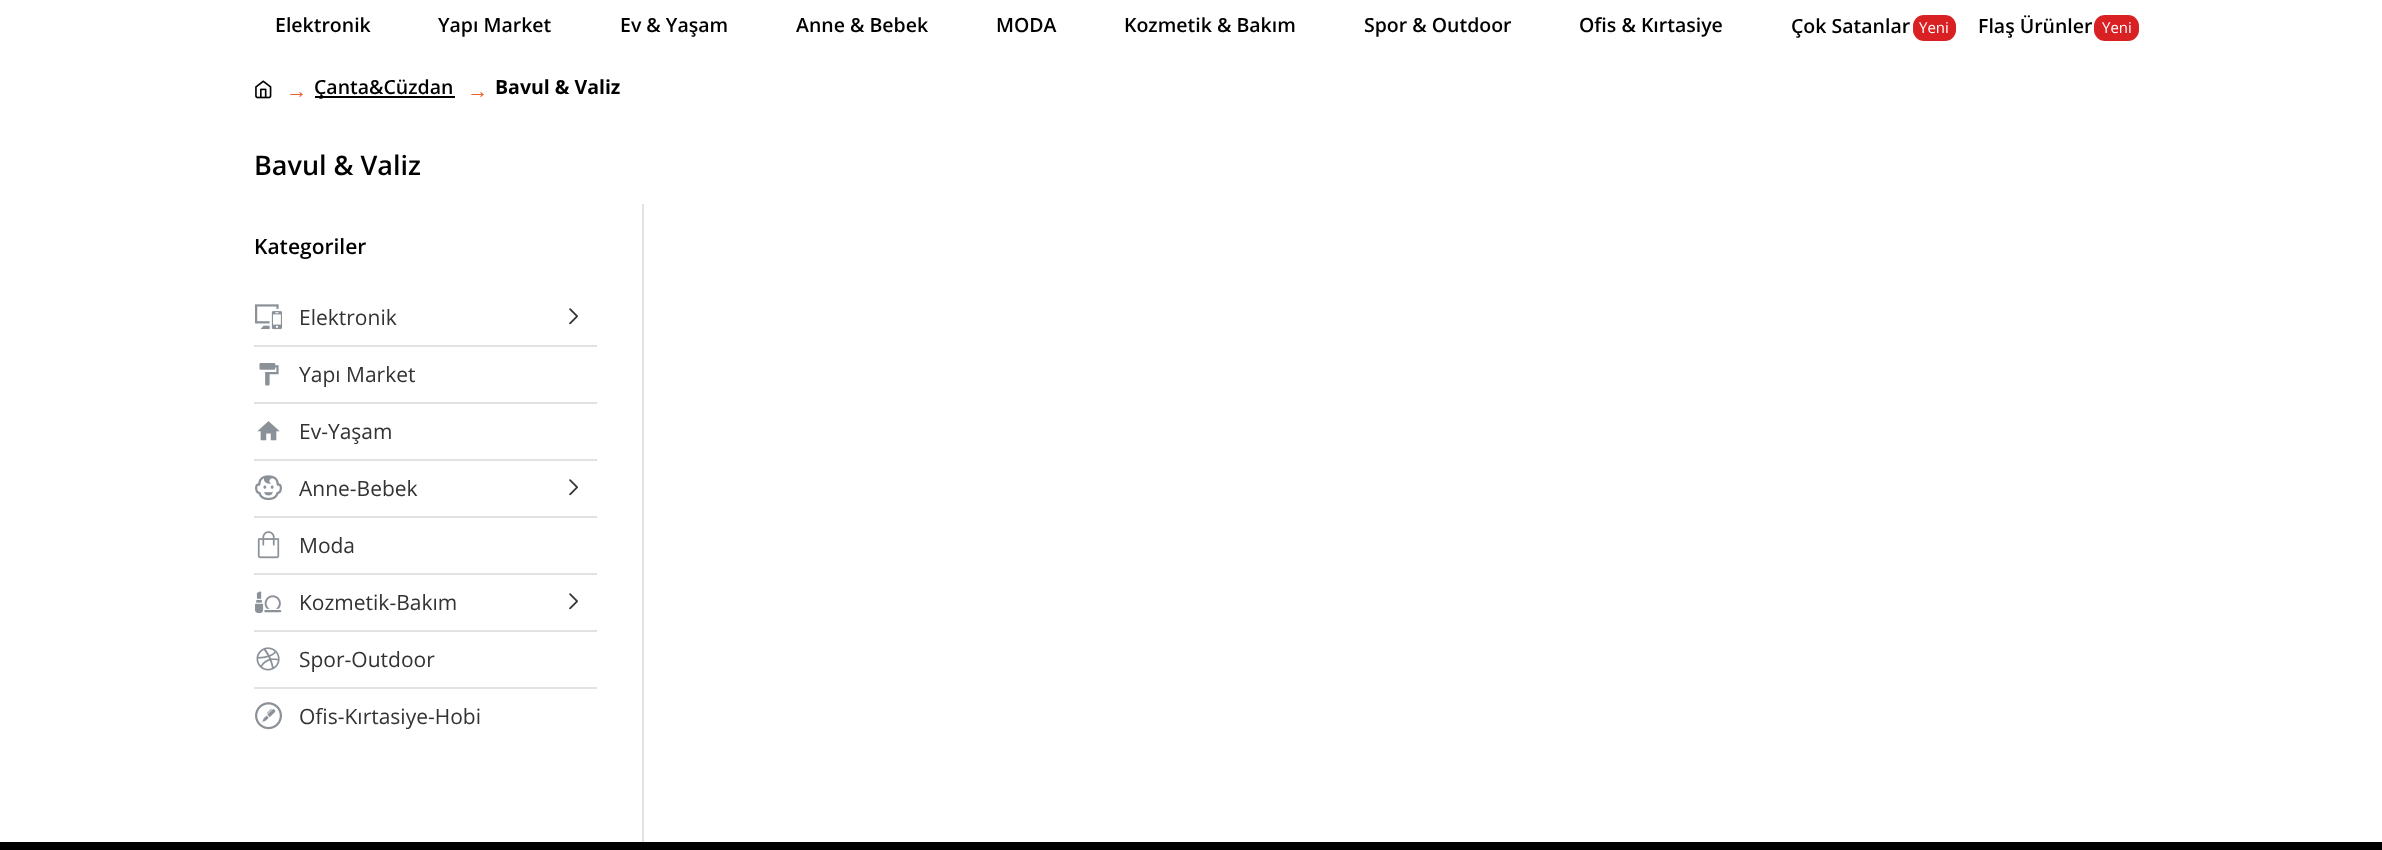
<svg xmlns="http://www.w3.org/2000/svg" width="2382" height="850">
<rect width="100%" height="100%" fill="#fff"/>
<text x="275" y="32" style="font-family:Open Sans;font-size:19.5px;font-weight:600;fill:#000">Elektronik</text>
<text x="438" y="32" style="font-family:Open Sans;font-size:19.5px;font-weight:600;fill:#000">Yapı Market</text>
<text x="620" y="32" style="font-family:Open Sans;font-size:19.5px;font-weight:600;fill:#000">Ev &amp; Yaşam</text>
<text x="796" y="32" style="font-family:Open Sans;font-size:19.5px;font-weight:600;fill:#000">Anne &amp; Bebek</text>
<text x="996" y="32" style="font-family:Open Sans;font-size:19.5px;font-weight:600;fill:#000">MODA</text>
<text x="1124" y="32" style="font-family:Open Sans;font-size:19.5px;font-weight:600;fill:#000">Kozmetik &amp; Bakım</text>
<text x="1364" y="32" style="font-family:Open Sans;font-size:19.5px;font-weight:600;fill:#000">Spor &amp; Outdoor</text>
<text x="1579" y="32" style="font-family:Open Sans;font-size:19.5px;font-weight:600;fill:#000">Ofis &amp; Kırtasiye</text>
<text x="1791" y="33" style="font-family:Open Sans;font-size:19.5px;font-weight:600;fill:#000">Çok Satanlar</text>
<rect x="1913" y="15" width="43" height="26" rx="11" fill="#d92124"/>
<text x="1919" y="33" style="font-family:Open Sans;font-size:15px;fill:#fff">Yeni</text>
<text x="1978" y="33" style="font-family:Open Sans;font-size:19.5px;font-weight:600;fill:#000">Flaş Ürünler</text>
<rect x="2094" y="15" width="45" height="26" rx="11" fill="#d92124"/>
<text x="2102" y="33" style="font-family:Open Sans;font-size:15px;fill:#fff">Yeni</text>
<image x="255" y="80" width="17" height="19" href="media/1.png"/>
<text x="286" y="98" style="font-family:Liberation Serif;font-size:21px;fill:#e96631">→</text>
<rect x="315" y="96" width="140" height="2" fill="#000"/>
<text x="314" y="94" style="font-family:Open Sans;font-size:19.5px;font-weight:600;fill:#000">Çanta&amp;Cüzdan</text>
<text x="467" y="98" style="font-family:Liberation Serif;font-size:21px;fill:#e96631">→</text>
<text x="495" y="94" style="font-family:Open Sans;font-size:19.5px;font-weight:bold;fill:#000">Bavul &amp; Valiz</text>
<text x="254" y="175" style="font-family:Open Sans;font-size:27px;font-weight:600;fill:#000">Bavul &amp; Valiz</text>
<rect x="642" y="204" width="2" height="638" fill="#e2e2e2"/>
<text x="254" y="254" style="font-family:Open Sans;font-size:21px;font-weight:600;fill:#000">Kategoriler</text>
<image x="255" y="304" width="27" height="26" href="media/2.png"/>
<text x="299" y="325" style="font-family:Open Sans;font-size:21px;fill:#333">Elektronik</text>
<image x="569" y="308" width="9" height="17" href="media/3.png"/>
<rect x="254" y="345" width="343" height="2" fill="#e2e2e2"/>
<image x="259" y="363" width="20" height="23" href="media/4.png"/>
<text x="299" y="382" style="font-family:Open Sans;font-size:21px;fill:#333">Yapı Market</text>
<rect x="254" y="402" width="343" height="2" fill="#e2e2e2"/>
<image x="257" y="421" width="23" height="20" href="media/5.png"/>
<text x="299" y="439" style="font-family:Open Sans;font-size:21px;fill:#333">Ev-Yaşam</text>
<rect x="254" y="459" width="343" height="2" fill="#e2e2e2"/>
<image x="255" y="475" width="27" height="26" href="media/6.png"/>
<text x="299" y="496" style="font-family:Open Sans;font-size:21px;fill:#333">Anne-Bebek</text>
<image x="569" y="479" width="9" height="17" href="media/3.png"/>
<rect x="254" y="516" width="343" height="2" fill="#e2e2e2"/>
<image x="257" y="531" width="23" height="28" href="media/7.png"/>
<text x="299" y="553" style="font-family:Open Sans;font-size:21px;fill:#333">Moda</text>
<rect x="254" y="573" width="343" height="2" fill="#e2e2e2"/>
<image x="255" y="591" width="27" height="23" href="media/8.png"/>
<text x="299" y="610" style="font-family:Open Sans;font-size:21px;fill:#333">Kozmetik-Bakım</text>
<image x="569" y="593" width="9" height="17" href="media/3.png"/>
<rect x="254" y="630" width="343" height="2" fill="#e2e2e2"/>
<image x="256" y="647" width="24" height="24" href="media/9.png"/>
<text x="299" y="667" style="font-family:Open Sans;font-size:21px;fill:#333">Spor-Outdoor</text>
<rect x="254" y="687" width="343" height="2" fill="#e2e2e2"/>
<image x="255" y="702" width="27" height="28" href="media/10.png"/>
<text x="299" y="724" style="font-family:Open Sans;font-size:21px;fill:#333">Ofis-Kırtasiye-Hobi</text>
<rect y="842" width="2382" height="8" fill="#000"/>
</svg>
